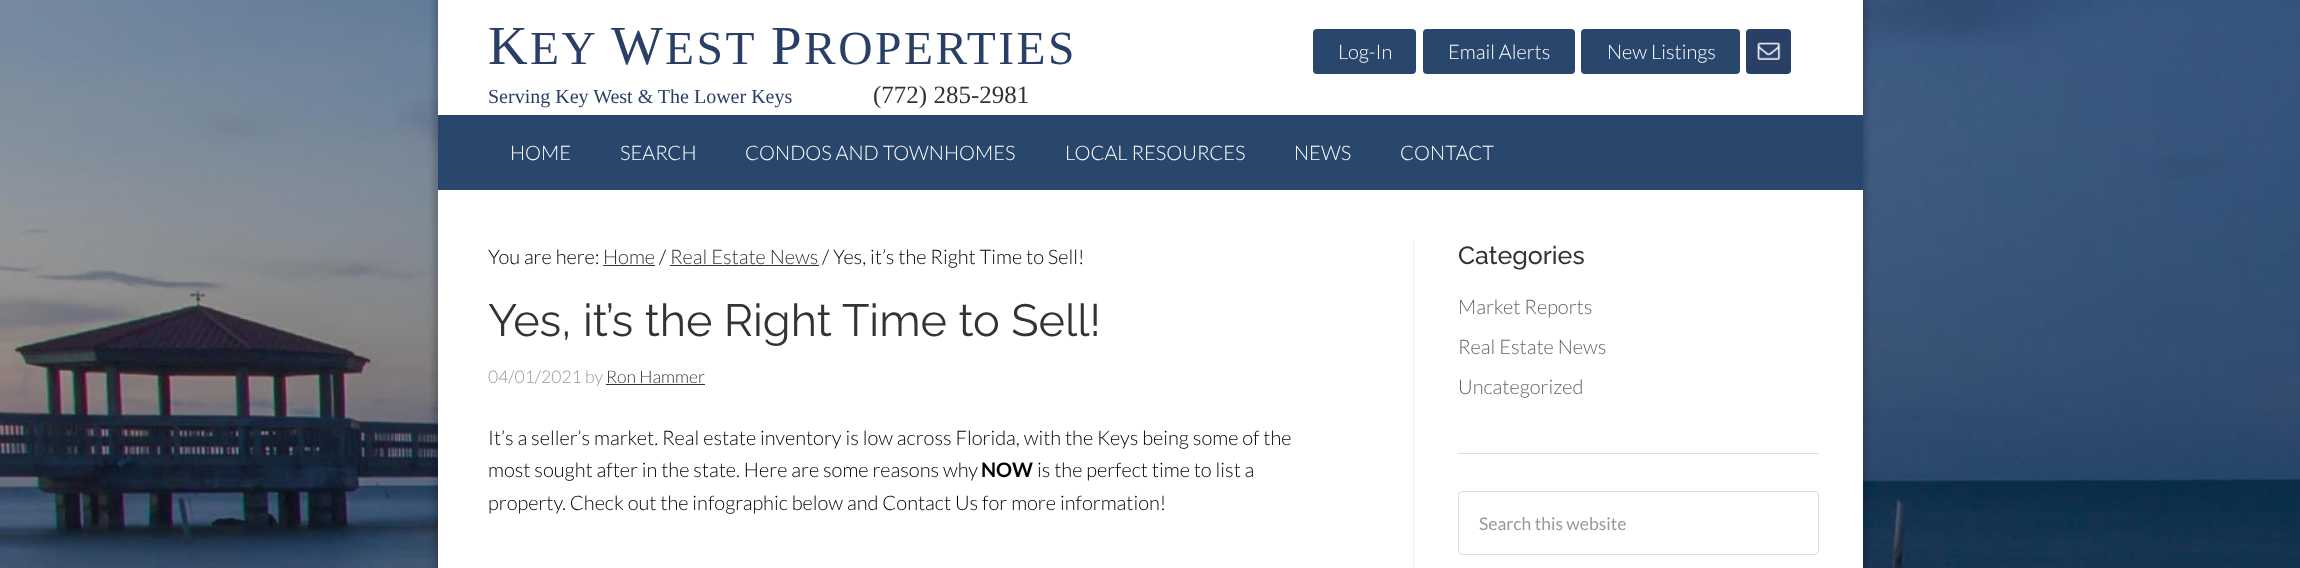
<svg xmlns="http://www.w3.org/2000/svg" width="2300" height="568">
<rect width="100%" height="100%" fill="#fff"/>
<image x="0" y="0" width="2300" height="568" href="media/1.png"/>
<rect x="434" y="-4" width="1432" height="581" fill="#00000033" filter="blur(3px)"/>
<rect x="438" width="1425" height="115" fill="#fff"/>
<text x="488" y="64" style="font-family:Liberation Serif;font-size:55px;letter-spacing:2.5px;fill:#293f66">K</text>
<text x="530" y="64" style="font-family:Liberation Serif;font-size:47.5px;letter-spacing:2.5px;fill:#293f66">EY</text>
<text x="611" y="64" style="font-family:Liberation Serif;font-size:55px;letter-spacing:2.5px;fill:#293f66">W</text>
<text x="665" y="64" style="font-family:Liberation Serif;font-size:47.5px;letter-spacing:2.5px;fill:#293f66">EST</text>
<text x="771" y="64" style="font-family:Liberation Serif;font-size:55px;letter-spacing:2.5px;fill:#293f66">P</text>
<text x="804" y="64" style="font-family:Liberation Serif;font-size:47.5px;letter-spacing:2.5px;fill:#293f66">ROPERTIES</text>
<text x="488" y="103" style="font-family:Liberation Serif;font-size:20px;fill:#293f66">Serving Key West &amp; The Lower Keys</text>
<text x="873" y="103" style="font-family:Liberation Serif;font-size:25px;fill:#333">(772) 285-2981</text>
<rect x="1313" y="29" width="103" height="45" rx="4" fill="#29476d"/>
<text x="1338" y="59" style="font-family:Lato;font-size:20px;font-weight:300;fill:#fff">Log-In</text>
<rect x="1423" y="29" width="152" height="45" rx="4" fill="#29476d"/>
<text x="1448" y="59" style="font-family:Lato;font-size:20px;font-weight:300;fill:#fff">Email Alerts</text>
<rect x="1581" y="29" width="159" height="45" rx="4" fill="#29476d"/>
<text x="1607" y="59" style="font-family:Lato;font-size:20px;font-weight:300;fill:#fff">New Listings</text>
<rect x="1746" y="29" width="45" height="45" rx="4" fill="#293f66"/>
<image x="1757" y="42" width="24" height="18" href="media/2.png"/>
<rect x="438" y="115" width="1425" height="75" fill="#29476d"/>
<text x="510" y="160" style="font-family:Lato;font-size:20px;font-weight:300;fill:#fff">HOME</text>
<text x="620" y="160" style="font-family:Lato;font-size:20px;font-weight:300;fill:#fff">SEARCH</text>
<text x="745" y="160" style="font-family:Lato;font-size:20px;font-weight:300;fill:#fff">CONDOS AND TOWNHOMES</text>
<text x="1065" y="160" style="font-family:Lato;font-size:20px;font-weight:300;fill:#fff">LOCAL RESOURCES</text>
<text x="1294" y="160" style="font-family:Lato;font-size:20px;font-weight:300;fill:#fff">NEWS</text>
<text x="1400" y="160" style="font-family:Lato;font-size:20px;font-weight:300;fill:#fff">CONTACT</text>
<rect x="438" y="190" width="1425" height="378" fill="#fff"/>
<text x="488" y="264" style="font-family:Lato;font-size:20px;font-weight:300;fill:#000">You are here:</text>
<text x="603" y="264" style="font-family:Lato;font-size:20px;font-weight:300;fill:#333">Home</text>
<rect x="603" y="265" width="52" height="1" fill="#333"/>
<text x="659" y="264" style="font-family:Lato;font-size:20px;font-weight:300;fill:#000">/</text>
<text x="670" y="264" style="font-family:Lato;font-size:20px;font-weight:300;fill:#333">Real Estate News</text>
<rect x="670" y="265" width="149" height="1" fill="#333"/>
<text x="822" y="264" style="font-family:Lato;font-size:20px;font-weight:300;fill:#000">/ Yes, it’s the Right Time to Sell!</text>
<text x="488" y="336" style="font-family:Raleway;font-size:45px;fill:#333">Yes, it’s the Right Time to Sell!</text>
<text x="488" y="383" style="font-family:Lato;font-size:17.5px;font-weight:300;fill:#999">04/01/2021 by</text>
<text x="606" y="383" style="font-family:Lato;font-size:17.5px;font-weight:300;fill:#333">Ron Hammer</text>
<rect x="606" y="384" width="99" height="1" fill="#333"/>
<text x="488" y="445" style="font-family:Lato;font-size:20px;font-weight:300;fill:#000">It’s a seller’s market. Real estate inventory is low across Florida, with the Keys being some of the</text>
<text x="488" y="477" style="font-family:Lato;font-size:20px;font-weight:300;fill:#000">most sought after in the state. Here are some reasons why</text>
<text x="981" y="477" style="font-family:Lato;font-size:20px;font-weight:bold;fill:#000">NOW</text>
<text x="1037" y="477" style="font-family:Lato;font-size:20px;font-weight:300;fill:#000">is the perfect time to list a</text>
<text x="488" y="510" style="font-family:Lato;font-size:20px;font-weight:300;fill:#000">property. Check out the infographic below and Contact Us for more information!</text>
<rect x="1413" y="240" width="1" height="328" fill="#eee"/>
<rect x="1458" y="453" width="361" height="1" fill="#ddd"/>
<text x="1458" y="264" style="font-family:Raleway;font-size:25px;font-weight:500;fill:#333">Categories</text>
<text x="1458" y="314" style="font-family:Lato;font-size:20px;font-weight:300;fill:#656565">Market Reports</text>
<text x="1458" y="354" style="font-family:Lato;font-size:20px;font-weight:300;fill:#656565">Real Estate News</text>
<text x="1458" y="394" style="font-family:Lato;font-size:20px;font-weight:300;fill:#656565">Uncategorized</text>
<rect x="1458.5" y="491.5" width="360" height="63" rx="3.5" fill="none" stroke="#ddd"/>
<text x="1479" y="530" style="font-family:Lato;font-size:17.5px;fill:#999">Search this website</text>
</svg>
